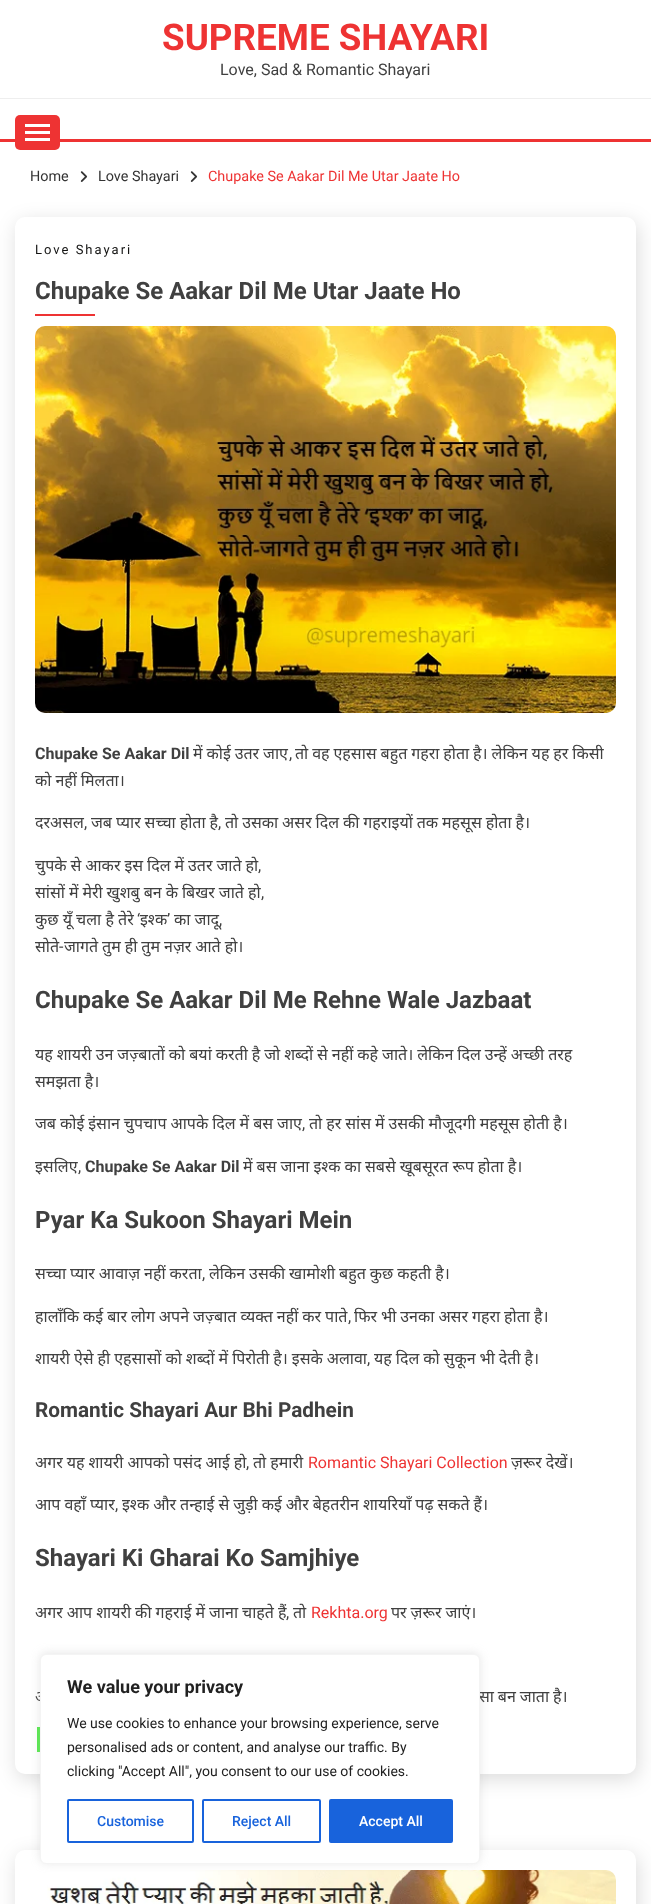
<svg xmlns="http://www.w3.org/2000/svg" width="651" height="1904">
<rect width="100%" height="100%" fill="#fff"/>
<text x="162" y="50" style="font-family:Roboto;font-size:36.75px;font-weight:bold;fill:#e33">SUPREME SHAYARI</text>
<text x="220" y="75" style="font-family:Roboto;font-size:16px;fill:#404040">Love, Sad &amp; Romantic Shayari</text>
<rect y="139" width="651" height="3" fill="#e33"/>
<rect x="15" y="115" width="45" height="35" rx="5" fill="#e33"/>
<rect x="25" y="124" width="25" height="3" fill="#fff"/>
<rect x="25" y="131" width="25" height="3" fill="#fff"/>
<rect x="25" y="138" width="25" height="3" fill="#fff"/>
<rect y="98" width="651" height="1" fill="#eee"/>
<text x="30" y="181" style="font-family:Roboto;font-size:14.4px;fill:#333">Home</text>
<image x="80" y="171" width="8" height="11" href="media/1.png"/>
<text x="98" y="181" style="font-family:Roboto;font-size:14.4px;fill:#333">Love Shayari</text>
<image x="190" y="171" width="8" height="11" href="media/1.png"/>
<text x="208" y="181" style="font-family:Roboto;font-size:14.4px;fill:#e33">Chupake Se Aakar Dil Me Utar Jaate Ho</text>
<rect x="17" y="222" width="621" height="1557" rx="10" fill="#00000024" filter="blur(10px)"/>
<rect x="15" y="217" width="621" height="1557" rx="10" fill="#fff"/>
<text x="35" y="254" style="font-family:Roboto;font-size:13px;letter-spacing:2px;fill:#141413">Love Shayari</text>
<text x="35" y="299" style="font-family:Roboto;font-size:24px;font-weight:bold;fill:#404040">Chupake Se Aakar Dil Me Utar Jaate Ho</text>
<rect x="35" y="314" width="60" height="2" fill="#e33"/>
<image x="35" y="326" width="581" height="387" href="media/2.png"/>
<text x="35" y="759" style="font-family:Roboto;font-size:16px;font-weight:bold;fill:#404040">Chupake Se Aakar Dil</text>
<text x="193" y="759" word-spacing="-0.25" style="font-family:Noto Sans;font-size:16px;fill:#404040">में कोई उतर जाए</text>
<text x="289" y="759" style="font-family:Roboto;font-size:16px;fill:#404040">,</text>
<text x="295" y="759" word-spacing="-0.25" style="font-family:Noto Sans;font-size:16px;fill:#404040">तो वह एहसास बहुत गहरा होता है। लेकिन यह हर किसी</text>
<text x="35" y="786" word-spacing="-0.2" style="font-family:Noto Sans;font-size:16px;fill:#404040">को नहीं मिलता।</text>
<text x="35" y="828" style="font-family:Noto Sans;font-size:16px;fill:#404040">दरअसल</text>
<text x="84" y="828" style="font-family:Roboto;font-size:16px;fill:#404040">,</text>
<text x="91" y="828" word-spacing="-0.25" style="font-family:Noto Sans;font-size:16px;fill:#404040">जब प्यार सच्चा होता है</text>
<text x="218" y="828" style="font-family:Roboto;font-size:16px;fill:#404040">,</text>
<text x="225" y="828" word-spacing="-0.25" style="font-family:Noto Sans;font-size:16px;fill:#404040">तो उसका असर दिल की गहराइयों तक महसूस होता है।</text>
<text x="35" y="871" word-spacing="-0.2" style="font-family:Noto Sans;font-size:16px;fill:#404040">चुपके से आकर इस दिल में उतर जाते हो</text>
<text x="258" y="871" style="font-family:Roboto;font-size:16px;fill:#404040">,</text>
<text x="35" y="898" word-spacing="-0.2" style="font-family:Noto Sans;font-size:16px;fill:#404040">सांसों में मेरी खुशबु बन के बिखर जाते हो</text>
<text x="261" y="898" style="font-family:Roboto;font-size:16px;fill:#404040">,</text>
<text x="35" y="925" style="font-family:Noto Sans;font-size:16px;fill:#404040">कुछ यूँ चला है तेरे</text>
<text x="137" y="925" style="font-family:Roboto;font-size:16px;fill:#404040">‘</text>
<text x="140" y="925" style="font-family:Noto Sans;font-size:16px;fill:#404040">इश्क</text>
<text x="167" y="925" style="font-family:Roboto;font-size:16px;fill:#404040">’</text>
<text x="174" y="925" style="font-family:Noto Sans;font-size:16px;fill:#404040">का जादू</text>
<text x="219" y="925" style="font-family:Roboto;font-size:16px;fill:#404040">,</text>
<text x="35" y="952" style="font-family:Noto Sans;font-size:16px;fill:#404040">सोते</text>
<text x="59" y="952" style="font-family:Roboto;font-size:16px;fill:#404040">-</text>
<text x="64" y="952" word-spacing="-0.2" style="font-family:Noto Sans;font-size:16px;fill:#404040">जागते तुम ही तुम नज़र आते हो।</text>
<text x="35" y="1008" style="font-family:Roboto;font-size:24px;font-weight:bold;fill:#404040">Chupake Se Aakar Dil Me Rehne Wale Jazbaat</text>
<text x="35" y="1060" word-spacing="-0.2" style="font-family:Noto Sans;font-size:16px;fill:#404040">यह शायरी उन जज़्बातों को बयां करती है जो शब्दों से नहीं कहे जाते। लेकिन दिल उन्हें अच्छी तरह</text>
<text x="35" y="1087" word-spacing="-0.2" style="font-family:Noto Sans;font-size:16px;fill:#404040">समझता है।</text>
<text x="35" y="1129" word-spacing="-0.2" style="font-family:Noto Sans;font-size:16px;fill:#404040">जब कोई इंसान चुपचाप आपके दिल में बस जाए</text>
<text x="302" y="1129" style="font-family:Roboto;font-size:16px;fill:#404040">,</text>
<text x="309" y="1129" word-spacing="-0.2" style="font-family:Noto Sans;font-size:16px;fill:#404040">तो हर सांस में उसकी मौजूदगी महसूस होती है।</text>
<text x="35" y="1172" style="font-family:Noto Sans;font-size:16px;fill:#404040">इसलिए</text>
<text x="78" y="1172" style="font-family:Roboto;font-size:16px;fill:#404040">,</text>
<text x="85" y="1172" style="font-family:Roboto;font-size:16px;font-weight:bold;fill:#404040">Chupake Se Aakar Dil</text>
<text x="243" y="1172" word-spacing="-0.2" style="font-family:Noto Sans;font-size:16px;fill:#404040">में बस जाना इश्क का सबसे खूबसूरत रूप होता है।</text>
<text x="35" y="1228" style="font-family:Roboto;font-size:24px;font-weight:bold;fill:#404040">Pyar Ka Sukoon Shayari Mein</text>
<text x="35" y="1279" word-spacing="-0.2" style="font-family:Noto Sans;font-size:16px;fill:#404040">सच्चा प्यार आवाज़ नहीं करता</text>
<text x="202" y="1279" style="font-family:Roboto;font-size:16px;fill:#404040">,</text>
<text x="209" y="1279" word-spacing="-0.2" style="font-family:Noto Sans;font-size:16px;fill:#404040">लेकिन उसकी खामोशी बहुत कुछ कहती है।</text>
<text x="35" y="1322" word-spacing="-0.2" style="font-family:Noto Sans;font-size:16px;fill:#404040">हालाँकि कई बार लोग अपने जज़्बात व्यक्त नहीं कर पाते</text>
<text x="348" y="1322" style="font-family:Roboto;font-size:16px;fill:#404040">,</text>
<text x="354" y="1322" word-spacing="-0.2" style="font-family:Noto Sans;font-size:16px;fill:#404040">फिर भी उनका असर गहरा होता है।</text>
<text x="35" y="1364" word-spacing="-0.2" style="font-family:Noto Sans;font-size:16px;fill:#404040">शायरी ऐसे ही एहसासों को शब्दों में पिरोती है। इसके अलावा</text>
<text x="367" y="1364" style="font-family:Roboto;font-size:16px;fill:#404040">,</text>
<text x="374" y="1364" word-spacing="-0.2" style="font-family:Noto Sans;font-size:16px;fill:#404040">यह दिल को सुकून भी देती है।</text>
<text x="35" y="1417" style="font-family:Roboto;font-size:20.75px;font-weight:bold;fill:#404040">Romantic Shayari Aur Bhi Padhein</text>
<text x="35" y="1468" word-spacing="-0.2" style="font-family:Noto Sans;font-size:16px;fill:#404040">अगर यह शायरी आपको पसंद आई हो</text>
<text x="246" y="1468" style="font-family:Roboto;font-size:16px;fill:#404040">,</text>
<text x="253" y="1468" word-spacing="-0.2" style="font-family:Noto Sans;font-size:16px;fill:#404040">तो हमारी</text>
<text x="308" y="1468" style="font-family:Roboto;font-size:16px;fill:#e33">Romantic Shayari Collection</text>
<text x="511" y="1468" word-spacing="-0.2" style="font-family:Noto Sans;font-size:16px;fill:#404040">ज़रूर देखें।</text>
<text x="35" y="1510" word-spacing="-0.2" style="font-family:Noto Sans;font-size:16px;fill:#404040">आप वहाँ प्यार</text>
<text x="115" y="1510" style="font-family:Roboto;font-size:16px;fill:#404040">,</text>
<text x="122" y="1510" word-spacing="-0.2" style="font-family:Noto Sans;font-size:16px;fill:#404040">इश्क और तन्हाई से जुड़ी कई और बेहतरीन शायरियाँ पढ़ सकते हैं।</text>
<text x="35" y="1566" style="font-family:Roboto;font-size:24px;font-weight:bold;fill:#404040">Shayari Ki Gharai Ko Samjhiye</text>
<text x="35" y="1618" word-spacing="-0.2" style="font-family:Noto Sans;font-size:16px;fill:#404040">अगर आप शायरी की गहराई में जाना चाहते हैं</text>
<text x="286" y="1618" style="font-family:Roboto;font-size:16px;fill:#404040">,</text>
<text x="293" y="1618" style="font-family:Noto Sans;font-size:16px;fill:#404040">तो</text>
<text x="311" y="1618" style="font-family:Roboto;font-size:16px;fill:#e33">Rekhta.org</text>
<text x="391" y="1618" word-spacing="-0.2" style="font-family:Noto Sans;font-size:16px;fill:#404040">पर ज़रूर जाएं।</text>
<text x="35" y="1702" word-spacing="-0.2" style="font-family:Noto Sans;font-size:16px;fill:#404040">अ</text>
<text x="479" y="1702" word-spacing="-0.25" style="font-family:Noto Sans;font-size:16px;fill:#404040">सा बन जाता है।</text>
<rect x="37" y="1727" width="3" height="25" fill="#55eb4c"/>
<rect x="17" y="1855" width="621" height="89" rx="10" fill="#00000024" filter="blur(10px)"/>
<rect x="15" y="1850" width="621" height="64" rx="10" fill="#fff"/>
<image x="47" y="1870" width="569" height="34" href="media/3.png"/>
<rect x="40" y="1653" width="440" height="210" rx="6" fill="#acabab4d" filter="blur(5px)"/>
<rect x="40.5" y="1654.5" width="439" height="209" rx="5.5" fill="#fff" stroke="#f4f4f4"/>
<text x="67" y="1693" style="font-family:Roboto;font-size:18px;font-weight:bold;fill:#212121">We value your privacy</text>
<text x="67" y="1728" style="font-family:Roboto;font-size:14px;fill:#212121">We use cookies to enhance your browsing experience, serve</text>
<text x="67" y="1752" style="font-family:Roboto;font-size:14px;fill:#212121">personalised ads or content, and analyse our traffic. By</text>
<text x="67" y="1776" style="font-family:Roboto;font-size:14px;fill:#212121">clicking "Accept All", you consent to our use of cookies.</text>
<rect x="68" y="1800" width="125" height="42" rx="1" fill="none" stroke="#1863dc" stroke-width="2"/>
<text x="97" y="1826" style="font-family:Roboto;font-size:14px;font-weight:500;fill:#1863dc">Customise</text>
<rect x="203" y="1800" width="117" height="42" rx="1" fill="none" stroke="#1863dc" stroke-width="2"/>
<text x="232" y="1826" style="font-family:Roboto;font-size:14px;font-weight:500;fill:#1863dc">Reject All</text>
<rect x="330" y="1800" width="122" height="42" rx="1" fill="#1863dc" stroke="#1863dc" stroke-width="2"/>
<text x="359" y="1826" style="font-family:Roboto;font-size:14px;font-weight:500;fill:#fff">Accept All</text>
</svg>
